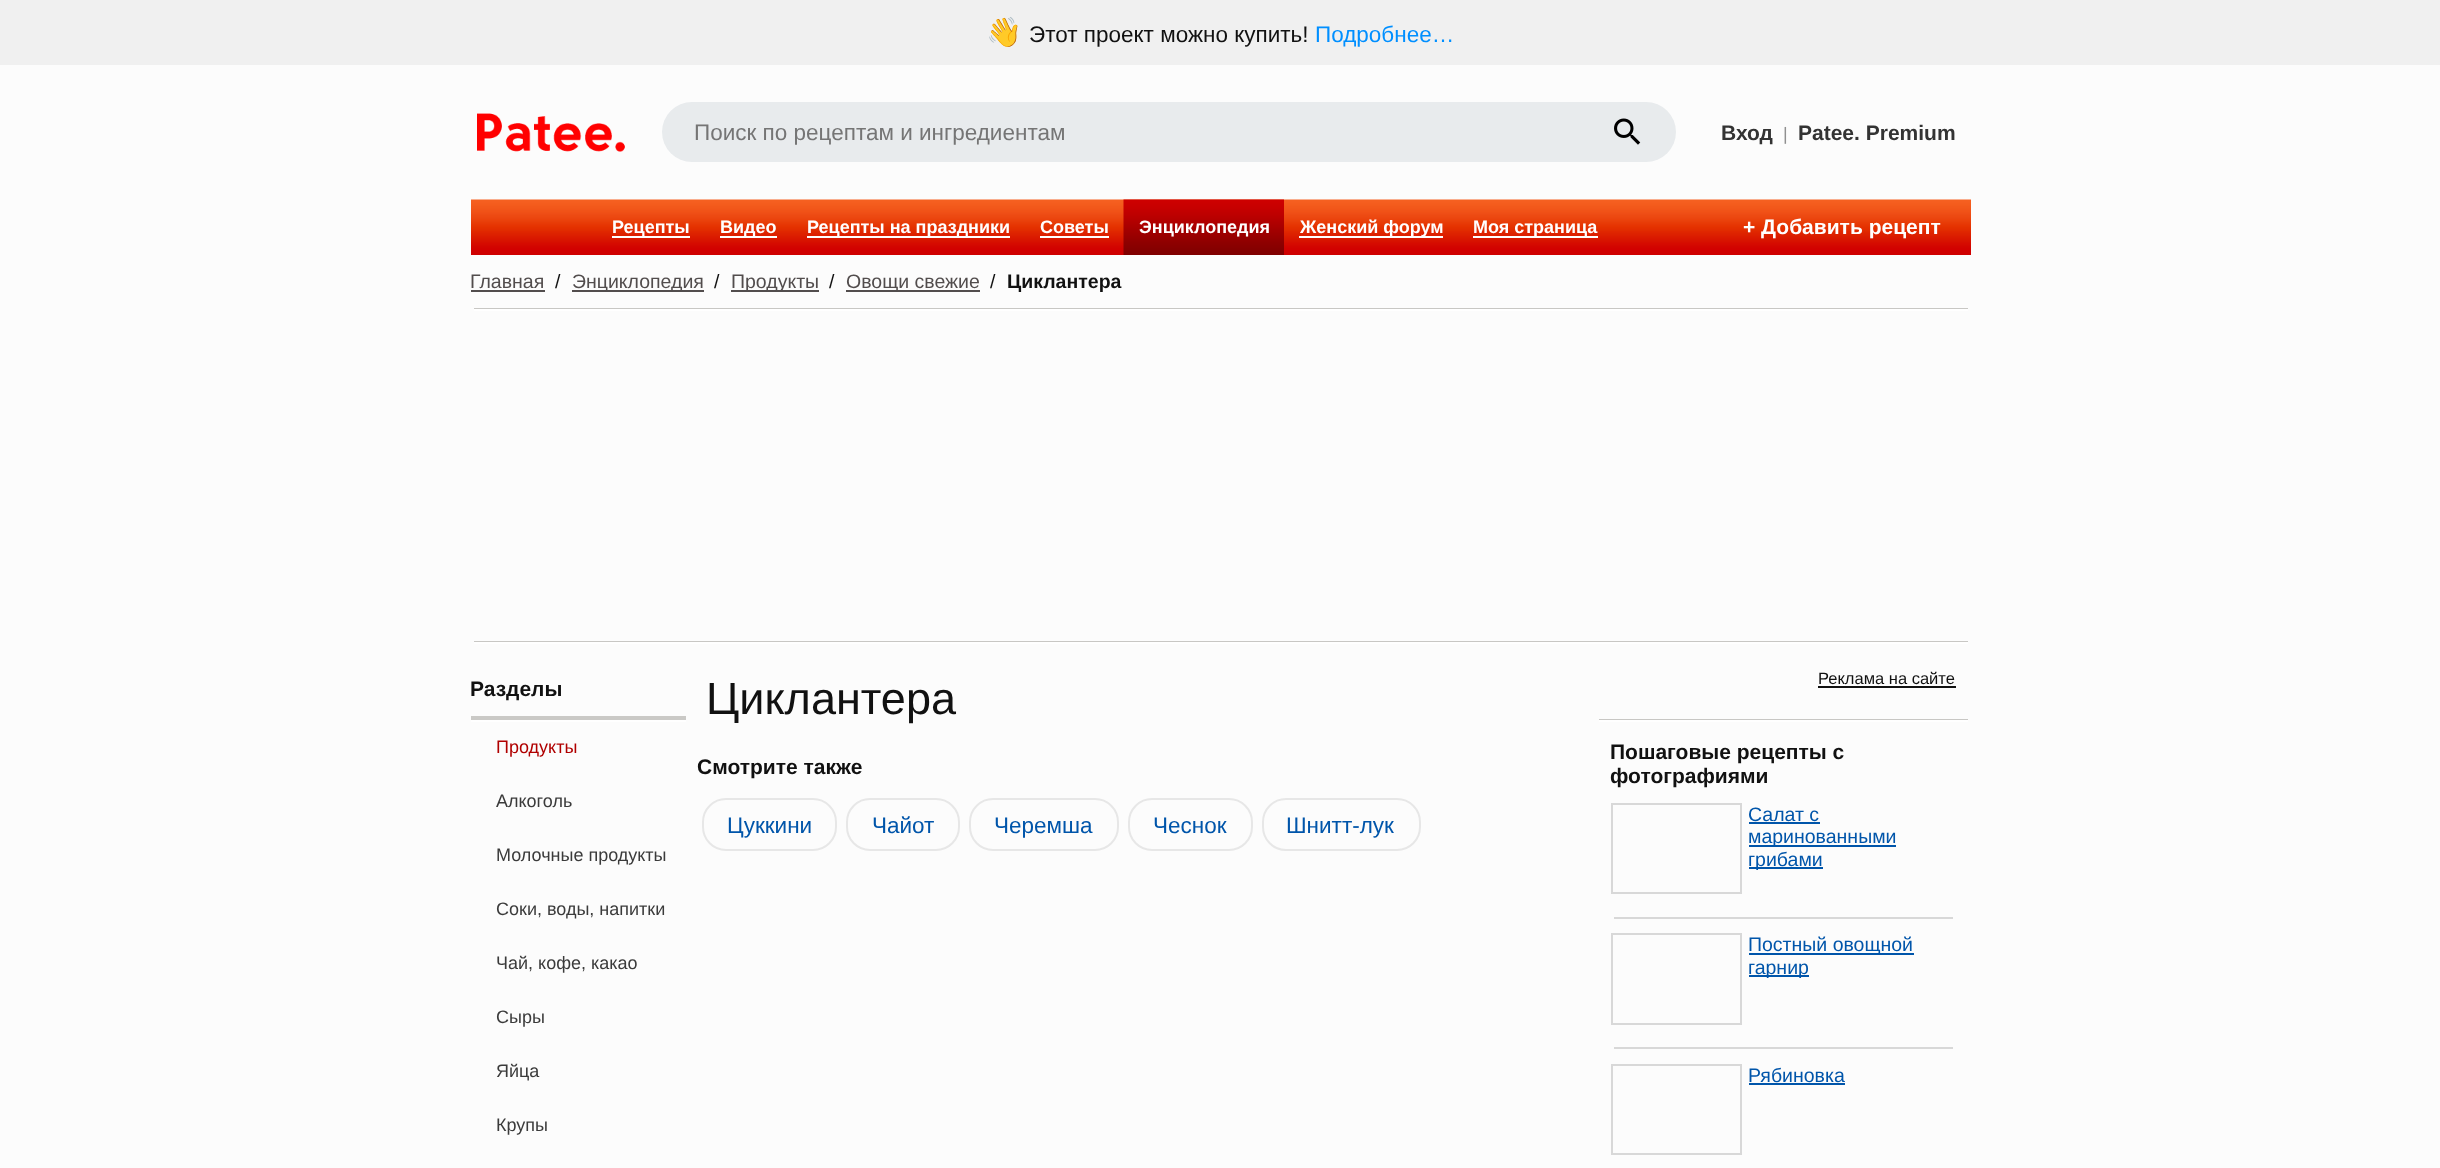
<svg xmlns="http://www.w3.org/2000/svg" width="2440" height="1168">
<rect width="100%" height="100%" fill="#fcfcfc"/>
<rect width="2440" height="65" fill="#f0f0f0"/>
<text x="986" y="42" style="font-family:Noto Color Emoji;font-size:29px;fill:#111">👋</text>
<text x="1029" y="42" style="font-family:Liberation Sans;font-size:22.5px;fill:#111">Этот проект можно купить!</text>
<text x="1315" y="42" style="font-family:Liberation Sans;font-size:22.5px;fill:#008fff">Подробнее…</text>
<image x="477" y="113" width="148" height="39" href="media/1.png"/>
<rect x="662" y="102" width="1014" height="60" rx="30" fill="#e8ebed"/>
<text x="694" y="140" style="font-family:Liberation Sans;font-size:22.5px;fill:#757575">Поиск по рецептам и ингредиентам</text>
<image x="1614" y="118" width="27" height="27" href="media/2.png"/>
<text x="1721" y="140" style="font-family:Liberation Sans;font-size:21px;font-weight:bold;fill:#333">Вход</text>
<text x="1783" y="140" style="font-family:Liberation Sans;font-size:18px;fill:#909090">|</text>
<text x="1798" y="140" style="font-family:Liberation Sans;font-size:21px;font-weight:bold;fill:#333">Patee. Premium</text>
<image x="471" y="199" width="1500" height="56" href="media/3.png"/>
<rect x="612" y="236" width="78" height="2" fill="#fff"/>
<text x="612" y="233" style="font-family:Liberation Sans;font-size:18px;font-weight:bold;fill:#fff">Рецепты</text>
<rect x="720" y="236" width="57" height="2" fill="#fff"/>
<text x="720" y="233" style="font-family:Liberation Sans;font-size:18px;font-weight:bold;fill:#fff">Видео</text>
<rect x="807" y="236" width="203" height="2" fill="#fff"/>
<text x="807" y="233" style="font-family:Liberation Sans;font-size:18px;font-weight:bold;fill:#fff">Рецепты на праздники</text>
<text x="1040" y="233" style="font-family:Liberation Sans;font-size:18px;font-weight:bold;fill:#fff">Советы</text>
<rect x="1040" y="236" width="69" height="2" fill="#fff"/>
<image x="1123" y="199" width="161" height="56" href="media/4.png"/>
<text x="1139" y="233" style="font-family:Liberation Sans;font-size:18px;font-weight:bold;fill:#fff">Энциклопедия</text>
<rect x="1299" y="236" width="144" height="2" fill="#fff"/>
<text x="1300" y="233" style="font-family:Liberation Sans;font-size:18px;font-weight:bold;fill:#fff">Женский форум</text>
<rect x="1473" y="236" width="125" height="2" fill="#fff"/>
<text x="1473" y="233" style="font-family:Liberation Sans;font-size:18px;font-weight:bold;fill:#fff">Моя страница</text>
<text x="1743" y="234" style="font-family:Liberation Sans;font-size:21px;font-weight:bold;fill:#fff">+ Добавить рецепт</text>
<text x="470" y="288" style="font-family:Liberation Sans;font-size:19.5px;fill:#524d4d">Главная</text>
<rect x="471" y="290" width="74" height="2" fill="#524d4d"/>
<text x="555" y="288" style="font-family:Liberation Sans;font-size:19.5px;fill:#111">/</text>
<rect x="572" y="290" width="132" height="2" fill="#524d4d"/>
<text x="572" y="288" style="font-family:Liberation Sans;font-size:19.5px;fill:#524d4d">Энциклопедия</text>
<text x="714" y="288" style="font-family:Liberation Sans;font-size:19.5px;fill:#111">/</text>
<rect x="731" y="290" width="88" height="2" fill="#524d4d"/>
<text x="731" y="288" style="font-family:Liberation Sans;font-size:19.5px;fill:#524d4d">Продукты</text>
<text x="829" y="288" style="font-family:Liberation Sans;font-size:19.5px;fill:#111">/</text>
<rect x="846" y="290" width="134" height="2" fill="#524d4d"/>
<text x="846" y="288" style="font-family:Liberation Sans;font-size:19.5px;fill:#524d4d">Овощи свежие</text>
<text x="990" y="288" style="font-family:Liberation Sans;font-size:19.5px;fill:#111">/</text>
<text x="1007" y="288" style="font-family:Liberation Sans;font-size:19.5px;font-weight:bold;fill:#111">Циклантера</text>
<rect x="474" y="308" width="1494" height="1" fill="#c8c7c4"/>
<rect x="474" y="309" width="1494" height="2" fill="#fff"/>
<rect x="474" y="641" width="1494" height="1" fill="#c8c7c4"/>
<rect x="474" y="642" width="1494" height="2" fill="#fff"/>
<text x="470" y="696" style="font-family:Liberation Sans;font-size:21px;font-weight:bold;fill:#111">Разделы</text>
<rect x="471" y="716" width="215" height="4" fill="#cac9c6"/>
<rect x="471" y="720" width="215" height="2" fill="#fff"/>
<text x="496" y="753" style="font-family:Liberation Sans;font-size:18px;fill:#b00000">Продукты</text>
<text x="496" y="807" style="font-family:Liberation Sans;font-size:18px;fill:#3b3b3b">Алкоголь</text>
<text x="496" y="861" style="font-family:Liberation Sans;font-size:18px;fill:#3b3b3b">Молочные продукты</text>
<text x="496" y="915" style="font-family:Liberation Sans;font-size:18px;fill:#3b3b3b">Соки, воды, напитки</text>
<text x="496" y="969" style="font-family:Liberation Sans;font-size:18px;fill:#3b3b3b">Чай, кофе, какао</text>
<text x="496" y="1023" style="font-family:Liberation Sans;font-size:18px;fill:#3b3b3b">Сыры</text>
<text x="496" y="1077" style="font-family:Liberation Sans;font-size:18px;fill:#3b3b3b">Яйца</text>
<text x="496" y="1131" style="font-family:Liberation Sans;font-size:18px;fill:#3b3b3b">Крупы</text>
<text x="706" y="714" style="font-family:Liberation Sans;font-size:45px;fill:#111">Циклантера</text>
<text x="697" y="774" style="font-family:Liberation Sans;font-size:21px;font-weight:bold;fill:#111">Смотрите также</text>
<rect x="703" y="799" width="133" height="51" rx="23" fill="none" stroke="#e7e7e7" stroke-width="2"/>
<text x="727" y="833" style="font-family:Liberation Sans;font-size:22.5px;fill:#05a">Цуккини</text>
<rect x="847" y="799" width="112" height="51" rx="23" fill="none" stroke="#e7e7e7" stroke-width="2"/>
<text x="872" y="833" style="font-family:Liberation Sans;font-size:22.5px;fill:#05a">Чайот</text>
<rect x="970" y="799" width="148" height="51" rx="23" fill="none" stroke="#e7e7e7" stroke-width="2"/>
<text x="994" y="833" style="font-family:Liberation Sans;font-size:22.5px;fill:#05a">Черемша</text>
<rect x="1129" y="799" width="123" height="51" rx="23" fill="none" stroke="#e7e7e7" stroke-width="2"/>
<text x="1153" y="833" style="font-family:Liberation Sans;font-size:22.5px;fill:#05a">Чеснок</text>
<rect x="1263" y="799" width="157" height="51" rx="23" fill="none" stroke="#e7e7e7" stroke-width="2"/>
<text x="1286" y="833" style="font-family:Liberation Sans;font-size:22.5px;fill:#05a">Шнитт-лук</text>
<text x="1818" y="684" style="font-family:Liberation Sans;font-size:16.5px;fill:#111">Реклама на сайте</text>
<rect x="1818" y="686" width="138" height="2" fill="#111"/>
<rect x="1599" y="719" width="369" height="1" fill="#c8c7c4"/>
<rect x="1599" y="720" width="369" height="2" fill="#fff"/>
<text x="1610" y="759" style="font-family:Liberation Sans;font-size:21px;font-weight:bold;fill:#111">Пошаговые рецепты с</text>
<text x="1610" y="783" style="font-family:Liberation Sans;font-size:21px;font-weight:bold;fill:#111">фотографиями</text>
<rect x="1612" y="804" width="129" height="89" fill="none" stroke="#d8d8d8" stroke-width="2"/>
<text x="1748" y="821" style="font-family:Liberation Sans;font-size:19.5px;fill:#05a">Салат с</text>
<rect x="1749" y="822" width="71" height="2" fill="#05a"/>
<rect x="1749" y="845" width="147" height="2" fill="#05a"/>
<text x="1748" y="843" style="font-family:Liberation Sans;font-size:19.5px;fill:#05a">маринованными</text>
<rect x="1749" y="867" width="74" height="2" fill="#05a"/>
<text x="1748" y="866" style="font-family:Liberation Sans;font-size:19.5px;fill:#05a">грибами</text>
<rect x="1614" y="917" width="339" height="2" fill="#d8d8d8"/>
<rect x="1612" y="934" width="129" height="90" fill="none" stroke="#d8d8d8" stroke-width="2"/>
<rect x="1749" y="953" width="165" height="2" fill="#05a"/>
<text x="1748" y="951" style="font-family:Liberation Sans;font-size:19.5px;fill:#05a">Постный овощной</text>
<rect x="1749" y="975" width="60" height="2" fill="#05a"/>
<text x="1748" y="974" style="font-family:Liberation Sans;font-size:19.5px;fill:#05a">гарнир</text>
<rect x="1614" y="1047" width="339" height="2" fill="#d8d8d8"/>
<rect x="1612" y="1065" width="129" height="89" fill="none" stroke="#d8d8d8" stroke-width="2"/>
<text x="1748" y="1082" style="font-family:Liberation Sans;font-size:19.5px;fill:#05a">Рябиновка</text>
<rect x="1749" y="1083" width="96" height="2" fill="#05a"/>
</svg>
